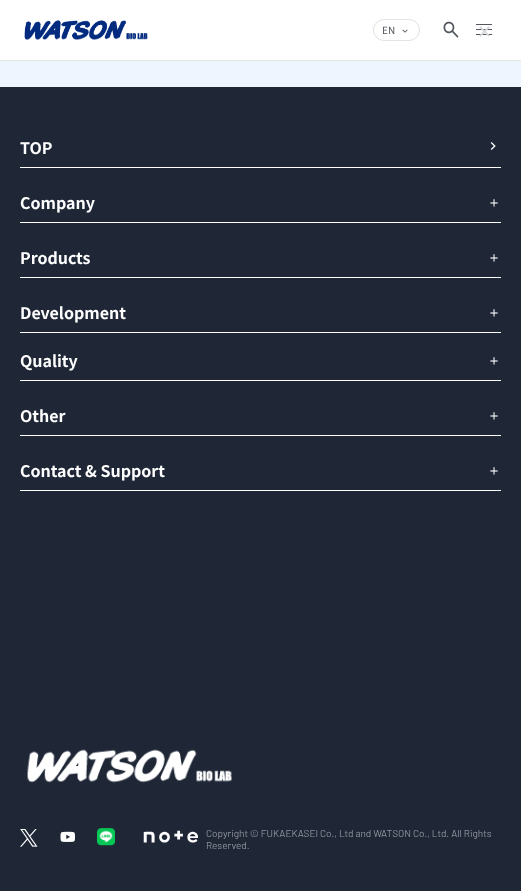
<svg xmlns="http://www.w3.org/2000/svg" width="521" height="891">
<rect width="100%" height="100%" fill="#eff5ff"/>
<rect width="521" height="60" fill="#fff"/>
<rect y="60" width="521" height="1" fill="#e2e3e4"/>
<image x="24" y="20" width="124" height="20" href="media/1.png"/>
<rect x="373.5" y="19.5" width="46" height="21" rx="10.5" fill="none" stroke="#e2e3e4"/>
<text x="382" y="34" style="font-family:Noto Sans JP;font-size:10px;fill:#525760">EN</text>
<image x="402" y="29" width="6" height="4" href="media/2.png"/>
<image x="443" y="21" width="16" height="17" href="media/3.png"/>
<rect x="476" y="24" width="16" height="1" fill="#525760"/>
<rect x="476" y="29" width="16" height="1" fill="#525760"/>
<rect x="476" y="34" width="16" height="1" fill="#525760"/>
<text x="477" y="38" style="font-family:DejaVu Sans;font-size:18px;fill:#d7d9db">✕</text>
<rect y="87" width="521" height="804" fill="#1f2737"/>
<rect x="20" y="167" width="481" height="1" fill="#fff"/>
<text x="20" y="154" style="font-family:Noto Sans JP;font-size:16px;font-weight:bold;fill:#fff">TOP</text>
<image x="490" y="142" width="6" height="8" href="media/4.png"/>
<rect x="20" y="222" width="481" height="1" fill="#fff"/>
<text x="20" y="209" style="font-family:Noto Sans JP;font-size:16px;font-weight:bold;fill:#fff">Company</text>
<text x="487" y="207" style="font-family:WenQuanYi Zen Hei;font-size:14px;font-weight:500;fill:#fff">＋</text>
<rect x="20" y="277" width="481" height="1" fill="#fff"/>
<text x="20" y="264" style="font-family:Noto Sans JP;font-size:16px;font-weight:bold;fill:#fff">Products</text>
<text x="487" y="262" style="font-family:WenQuanYi Zen Hei;font-size:14px;font-weight:500;fill:#fff">＋</text>
<rect x="20" y="332" width="481" height="1" fill="#fff"/>
<text x="20" y="319" style="font-family:Noto Sans JP;font-size:16px;font-weight:bold;fill:#fff">Development</text>
<text x="487" y="317" style="font-family:WenQuanYi Zen Hei;font-size:14px;font-weight:500;fill:#fff">＋</text>
<rect x="20" y="380" width="481" height="1" fill="#fff"/>
<text x="20" y="367" style="font-family:Noto Sans JP;font-size:16px;font-weight:bold;fill:#fff">Quality</text>
<text x="487" y="365" style="font-family:WenQuanYi Zen Hei;font-size:14px;font-weight:500;fill:#fff">＋</text>
<rect x="20" y="435" width="481" height="1" fill="#fff"/>
<text x="20" y="422" style="font-family:Noto Sans JP;font-size:16px;font-weight:bold;fill:#fff">Other</text>
<text x="487" y="420" style="font-family:WenQuanYi Zen Hei;font-size:14px;font-weight:500;fill:#fff">＋</text>
<rect x="20" y="490" width="481" height="1" fill="#fff"/>
<text x="20" y="477" style="font-family:Noto Sans JP;font-size:16px;font-weight:bold;fill:#fff">Contact &amp; Support</text>
<text x="487" y="475" style="font-family:WenQuanYi Zen Hei;font-size:14px;font-weight:500;fill:#fff">＋</text>
<image x="27" y="749" width="205" height="34" href="media/5.png"/>
<image x="20" y="829" width="18" height="18" href="media/6.png"/>
<image x="60" y="831" width="15" height="11" href="media/7.png"/>
<image x="97" y="828" width="18" height="18" href="media/8.png"/>
<image x="143" y="830" width="56" height="13" href="media/9.png"/>
<text x="206" y="837" style="font-family:Barlow;font-size:10px;fill:#8f939b">Copyright © FUKAEKASEI Co., Ltd and WATSON Co., Ltd. All Rights</text>
<text x="206" y="849" style="font-family:Barlow;font-size:10px;fill:#8f939b">Reserved.</text>
</svg>
